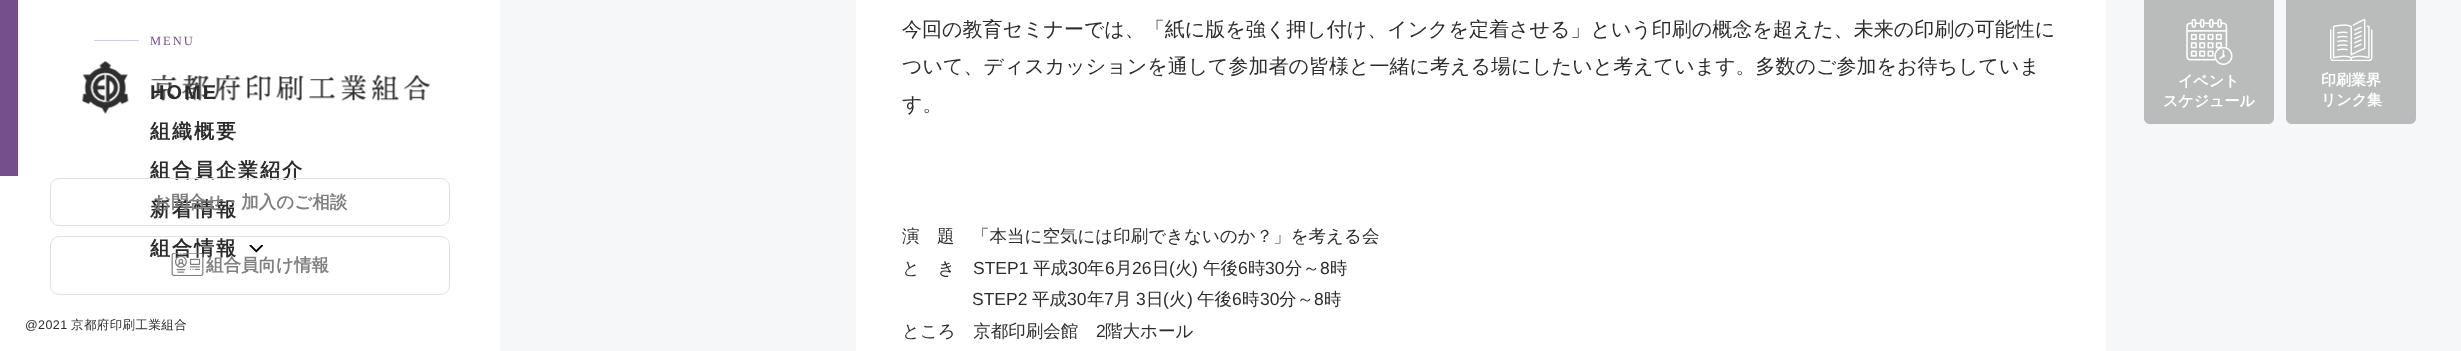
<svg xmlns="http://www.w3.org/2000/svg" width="2461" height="351">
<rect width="100%" height="100%" fill="#f5f7f8"/>
<rect width="500" height="351" fill="#fff"/>
<rect width="18" height="176" fill="#73508c"/>
<text x="150" y="99" style="font-family:Liberation Sans;font-size:20px;font-weight:bold;letter-spacing:2px;fill:#2c2c2c">HOME</text>
<image x="82" y="61" width="349" height="53" href="media/1.png"/>
<rect x="94" y="40" width="45" height="1" fill="#d5cadc"/>
<text x="150" y="45" style="font-family:Liberation Serif;font-size:12.5px;letter-spacing:2px;fill:#73508c">MENU</text>
<text x="150" y="138" style="font-family:WenQuanYi Zen Hei;font-size:20px;font-weight:bold;letter-spacing:2px;fill:#2c2c2c">組織概要</text>
<text x="150" y="177" style="font-family:WenQuanYi Zen Hei;font-size:20px;font-weight:bold;letter-spacing:2px;fill:#2c2c2c">組合員企業紹介</text>
<text x="150" y="216" style="font-family:WenQuanYi Zen Hei;font-size:20px;font-weight:bold;letter-spacing:2px;fill:#2c2c2c">新着情報</text>
<text x="150" y="255" style="font-family:WenQuanYi Zen Hei;font-size:20px;font-weight:bold;letter-spacing:2px;fill:#2c2c2c">組合情報</text>
<image x="249" y="245" width="15" height="8" href="media/2.png"/>
<rect x="50.5" y="178.5" width="399" height="47" rx="8.5" fill="none" stroke="#e1e1e1"/>
<text x="153" y="208" style="font-family:WenQuanYi Zen Hei;font-size:17.5px;font-weight:bold;fill:#808080">お問合せ・加入のご相談</text>
<rect x="50.5" y="236.5" width="399" height="58" rx="8.5" fill="none" stroke="#e1e1e1"/>
<image x="171" y="253" width="33" height="23" href="media/3.png"/>
<text x="206" y="271" style="font-family:WenQuanYi Zen Hei;font-size:17.5px;font-weight:bold;fill:#808080">組合員向け情報</text>
<text x="25" y="329" style="font-family:Liberation Sans;font-size:12.5px;letter-spacing:0.4px;fill:#2c2c2c">@2021</text>
<text x="71" y="329" style="font-family:WenQuanYi Zen Hei;font-size:12.5px;font-weight:500;letter-spacing:0.4px;fill:#2c2c2c">京都府印刷工業組合</text>
<rect x="856" width="1250" height="351" fill="#fff"/>
<text x="902" y="36" style="font-family:WenQuanYi Zen Hei;font-size:20px;font-weight:500;fill:#2c2c2c">今回の教育セミナーでは、「紙に版を強く押し付け、インクを定着させる」という印刷の概念を超えた、未来の印刷の可能性に</text>
<text x="902" y="73" style="font-family:WenQuanYi Zen Hei;font-size:20px;font-weight:500;fill:#2c2c2c">ついて、ディスカッションを通して参加者の皆様と一緒に考える場にしたいと考えています。多数のご参加をお待ちしていま</text>
<text x="902" y="111" style="font-family:WenQuanYi Zen Hei;font-size:20px;font-weight:500;fill:#2c2c2c">す。</text>
<text x="902" y="242" style="font-family:WenQuanYi Zen Hei;font-size:17.5px;font-weight:500;fill:#2c2c2c">演　題　「本当に空気には印刷できないのか？」を考える会</text>
<text x="902" y="274" style="font-family:WenQuanYi Zen Hei;font-size:17.5px;font-weight:500;fill:#2c2c2c">と　き</text>
<text x="973" y="274" style="font-family:Liberation Sans;font-size:17.5px;fill:#2c2c2c">STEP1</text>
<text x="1033" y="274" style="font-family:WenQuanYi Zen Hei;font-size:17.5px;font-weight:500;fill:#2c2c2c">平成</text>
<text x="1068" y="274" style="font-family:Liberation Sans;font-size:17.5px;fill:#2c2c2c">30</text>
<text x="1087" y="274" style="font-family:WenQuanYi Zen Hei;font-size:17.5px;font-weight:500;fill:#2c2c2c">年</text>
<text x="1105" y="274" style="font-family:Liberation Sans;font-size:17.5px;fill:#2c2c2c">6</text>
<text x="1115" y="274" style="font-family:WenQuanYi Zen Hei;font-size:17.5px;font-weight:500;fill:#2c2c2c">月</text>
<text x="1132" y="274" style="font-family:Liberation Sans;font-size:17.5px;fill:#2c2c2c">26</text>
<text x="1152" y="274" style="font-family:WenQuanYi Zen Hei;font-size:17.5px;font-weight:500;fill:#2c2c2c">日</text>
<text x="1169" y="274" style="font-family:Liberation Sans;font-size:17.5px;fill:#2c2c2c">(</text>
<text x="1175" y="274" style="font-family:WenQuanYi Zen Hei;font-size:17.5px;font-weight:500;fill:#2c2c2c">火</text>
<text x="1192" y="274" style="font-family:Liberation Sans;font-size:17.5px;fill:#2c2c2c">)</text>
<text x="1203" y="274" style="font-family:WenQuanYi Zen Hei;font-size:17.5px;font-weight:500;fill:#2c2c2c">午後</text>
<text x="1238" y="274" style="font-family:Liberation Sans;font-size:17.5px;fill:#2c2c2c">6</text>
<text x="1248" y="274" style="font-family:WenQuanYi Zen Hei;font-size:17.5px;font-weight:500;fill:#2c2c2c">時</text>
<text x="1265" y="274" style="font-family:Liberation Sans;font-size:17.5px;fill:#2c2c2c">30</text>
<text x="1285" y="274" style="font-family:WenQuanYi Zen Hei;font-size:17.5px;font-weight:500;fill:#2c2c2c">分～</text>
<text x="1320" y="274" style="font-family:Liberation Sans;font-size:17.5px;fill:#2c2c2c">8</text>
<text x="1330" y="274" style="font-family:WenQuanYi Zen Hei;font-size:17.5px;font-weight:500;fill:#2c2c2c">時</text>
<text x="972" y="305" style="font-family:Liberation Sans;font-size:17.5px;fill:#2c2c2c">STEP2</text>
<text x="1032" y="305" style="font-family:WenQuanYi Zen Hei;font-size:17.5px;font-weight:500;fill:#2c2c2c">平成</text>
<text x="1067" y="305" style="font-family:Liberation Sans;font-size:17.5px;fill:#2c2c2c">30</text>
<text x="1087" y="305" style="font-family:WenQuanYi Zen Hei;font-size:17.5px;font-weight:500;fill:#2c2c2c">年</text>
<text x="1104" y="305" style="font-family:Liberation Sans;font-size:17.5px;fill:#2c2c2c">7</text>
<text x="1114" y="305" style="font-family:WenQuanYi Zen Hei;font-size:17.5px;font-weight:500;fill:#2c2c2c">月</text>
<text x="1136" y="305" style="font-family:Liberation Sans;font-size:17.5px;fill:#2c2c2c">3</text>
<text x="1146" y="305" style="font-family:WenQuanYi Zen Hei;font-size:17.5px;font-weight:500;fill:#2c2c2c">日</text>
<text x="1163" y="305" style="font-family:Liberation Sans;font-size:17.5px;fill:#2c2c2c">(</text>
<text x="1169" y="305" style="font-family:WenQuanYi Zen Hei;font-size:17.5px;font-weight:500;fill:#2c2c2c">火</text>
<text x="1187" y="305" style="font-family:Liberation Sans;font-size:17.5px;fill:#2c2c2c">)</text>
<text x="1197" y="305" style="font-family:WenQuanYi Zen Hei;font-size:17.5px;font-weight:500;fill:#2c2c2c">午後</text>
<text x="1232" y="305" style="font-family:Liberation Sans;font-size:17.5px;fill:#2c2c2c">6</text>
<text x="1242" y="305" style="font-family:WenQuanYi Zen Hei;font-size:17.5px;font-weight:500;fill:#2c2c2c">時</text>
<text x="1260" y="305" style="font-family:Liberation Sans;font-size:17.5px;fill:#2c2c2c">30</text>
<text x="1279" y="305" style="font-family:WenQuanYi Zen Hei;font-size:17.5px;font-weight:500;fill:#2c2c2c">分～</text>
<text x="1314" y="305" style="font-family:Liberation Sans;font-size:17.5px;fill:#2c2c2c">8</text>
<text x="1324" y="305" style="font-family:WenQuanYi Zen Hei;font-size:17.5px;font-weight:500;fill:#2c2c2c">時</text>
<text x="902" y="337" style="font-family:WenQuanYi Zen Hei;font-size:17.5px;font-weight:500;fill:#2c2c2c">ところ　京都印刷会館</text>
<text x="1096" y="337" style="font-family:Liberation Sans;font-size:17.5px;fill:#2c2c2c">2</text>
<text x="1105" y="337" style="font-family:WenQuanYi Zen Hei;font-size:17.5px;font-weight:500;fill:#2c2c2c">階大ホール</text>
<path d="M2144 0h130v118c0 3.5-2.5 6-6 6h-118c-3.5 0-6-2.5-6-6z" fill="#babcbc"/>
<image x="2186" y="19" width="47" height="46" href="media/4.png"/>
<text x="2178" y="86" style="font-family:WenQuanYi Zen Hei;font-size:15px;font-weight:bold;fill:#fff">イベント</text>
<text x="2163" y="106" style="font-family:WenQuanYi Zen Hei;font-size:15px;font-weight:bold;fill:#fff">スケジュール</text>
<path d="M2286 0h130v118c0 3.5-2.5 6-6 6h-118c-3.5 0-6-2.5-6-6z" fill="#babcbc"/>
<image x="2330" y="19" width="43" height="42" href="media/5.png"/>
<text x="2321" y="85" style="font-family:WenQuanYi Zen Hei;font-size:15px;font-weight:bold;fill:#fff">印刷業界</text>
<text x="2321" y="105" style="font-family:WenQuanYi Zen Hei;font-size:15px;font-weight:bold;fill:#fff">リンク集</text>
</svg>
